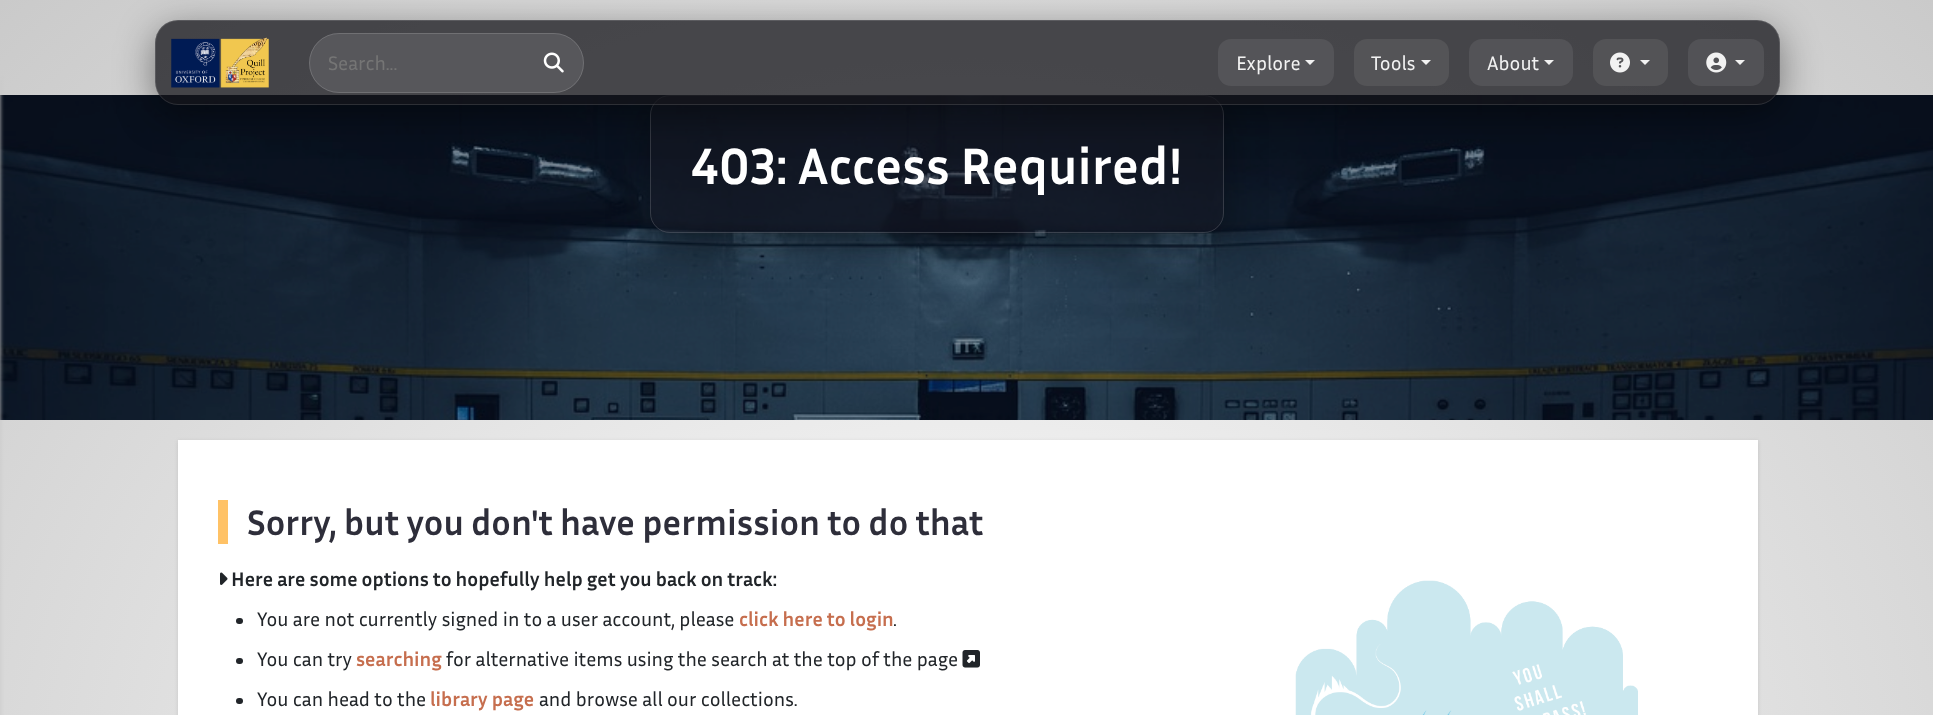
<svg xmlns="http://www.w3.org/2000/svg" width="1933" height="715">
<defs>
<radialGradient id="g1" gradientUnits="userSpaceOnUse" cx="0" cy="0" r="1" gradientTransform="matrix(1367 0 0 1215 967 859)"><stop offset="0" stop-color="#fff"/><stop offset="1" stop-color="#cacaca"/></radialGradient>
<clipPath id="clip1"><rect x="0" y="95" width="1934" height="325"/></clipPath>
<clipPath id="clip2"><path d="M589 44h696v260h-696zm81 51h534c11 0 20 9 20 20v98c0 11-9 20-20 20h-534c-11 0-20-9-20-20v-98c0-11 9-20 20-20z" clip-rule="evenodd"/></clipPath>
<clipPath id="clip3"><path d="M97 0h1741v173h-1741zm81 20h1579c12.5 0 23 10.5 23 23v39c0 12.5-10.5 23-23 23h-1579c-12.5 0-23-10.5-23-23v-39c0-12.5 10.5-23 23-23z" clip-rule="evenodd"/></clipPath>
</defs>
<rect width="100%" height="100%" fill="#fff"/>
<rect width="1933" height="715" fill="url(#g1)"/>
<image x="0" y="95" width="1933" height="325" href="media/5.png"/>
<g clip-path="url(#clip1)">
<g clip-path="url(#clip2)">
<rect x="650" y="105" width="574" height="138" rx="20" fill="#00000059" filter="blur(20px)"/>
</g>
</g>
<rect x="650" y="95" width="574" height="138" rx="20" fill="#19192373"/>
<rect x="650.5" y="95.5" width="573" height="137" rx="19.5" fill="none" stroke="#ffffff26"/>
<g clip-path="url(#clip3)">
<rect x="155" y="30" width="1625" height="85" rx="23" fill="#00000073" filter="blur(19px)"/>
</g>
<rect x="155" y="20" width="1625" height="85" rx="23" fill="#141419bf"/>
<rect x="155.5" y="20.5" width="1624" height="84" rx="22.5" fill="none" stroke="#ffffff1f"/>
<image x="171" y="37" width="98" height="51" href="media/1.png"/>
<rect x="309" y="33" width="275" height="60" rx="30" fill="#57575b"/>
<rect x="309.5" y="33.5" width="274" height="59" rx="29.5" fill="none" stroke="#ffffff26"/>
<text x="328" y="70" style="font-family:Inria Sans;font-size:20px;fill:#757575">Search...</text>
<image x="543" y="52" width="21" height="21" href="media/2.png"/>
<rect x="1218" y="39" width="116" height="47" rx="13" fill="#545458"/>
<text x="1236" y="70" style="font-family:Inria Sans;font-size:20px;fill:#f2f2f2">Explore</text>
<path d="M1305 60h10l-5 5z" fill="#f2f2f2"/>
<rect x="1354" y="39" width="95" height="47" rx="13" fill="#545457"/>
<text x="1371" y="70" style="font-family:Inria Sans;font-size:20px;fill:#f2f2f2">Tools</text>
<path d="M1421 60h10l-5 5z" fill="#f2f2f2"/>
<rect x="1469" y="39" width="104" height="47" rx="13" fill="#535357"/>
<text x="1487" y="70" style="font-family:Inria Sans;font-size:20px;fill:#f2f2f2">About</text>
<path d="M1544 60h10l-5 5z" fill="#f2f2f2"/>
<rect x="1593" y="39" width="75" height="47" rx="13" fill="#535356"/>
<image x="1610" y="52" width="20" height="21" href="media/3.png"/>
<path d="M1640 60h10l-5 5z" fill="#f2f2f2"/>
<rect x="1688" y="39" width="76" height="47" rx="13" fill="#525256"/>
<image x="1706" y="52" width="21" height="21" href="media/4.png"/>
<path d="M1735 60h10l-5 5z" fill="#f2f2f2"/>
<rect x="-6" y="80" width="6" height="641" fill="#cacaca" filter="blur(2px)"/>
<text x="691" y="184" style="font-family:Inria Sans;font-size:52px;font-weight:bold;fill:#fff">403: Access Required!</text>
<rect x="178" y="441" width="1580" height="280" fill="#0000001a" filter="blur(2px)"/>
<rect x="178" y="440" width="1580" height="275" fill="#fff"/>
<rect x="218" y="500" width="10" height="44" fill="#ffc266"/>
<text x="247" y="535" style="font-family:Inria Sans;font-size:36px;font-weight:bold;fill:#2e2e3a">Sorry, but you don't have permission to do that</text>
<image x="220" y="572" width="8" height="13" href="media/6.png"/>
<text x="231" y="586" style="font-family:Inria Sans;font-size:20px;font-weight:bold;fill:#212529">Here are some options to hopefully help get you back on track:</text>
<image x="1295" y="580" width="343" height="135" href="media/7.png"/>
<rect x="236" y="618" width="7" height="6" rx="3" fill="#212529"/>
<text x="257" y="626" style="font-family:Inria Sans;font-size:20px;fill:#212529">You are not currently signed in to a user account, please</text>
<text x="739" y="626" style="font-family:Inria Sans;font-size:20px;font-weight:bold;fill:#c66e4e">click here to login</text>
<text x="893" y="626" style="font-family:Inria Sans;font-size:20px;fill:#212529">.</text>
<rect x="236" y="658" width="7" height="6" rx="3" fill="#212529"/>
<text x="257" y="666" style="font-family:Inria Sans;font-size:20px;fill:#212529">You can try</text>
<text x="356" y="666" style="font-family:Inria Sans;font-size:20px;font-weight:bold;fill:#c66e4e">searching</text>
<text x="446" y="666" style="font-family:Inria Sans;font-size:20px;fill:#212529">for alternative items using the search at the top of the page</text>
<image x="962" y="650" width="18" height="18" href="media/8.png"/>
<rect x="236" y="698" width="7" height="6" rx="3" fill="#212529"/>
<text x="257" y="706" style="font-family:Inria Sans;font-size:20px;fill:#212529">You can head to the</text>
<text x="430" y="706" style="font-family:Inria Sans;font-size:20px;font-weight:bold;fill:#c66e4e">library page</text>
<text x="539" y="706" style="font-family:Inria Sans;font-size:20px;fill:#212529">and browse all our collections.</text>
</svg>
